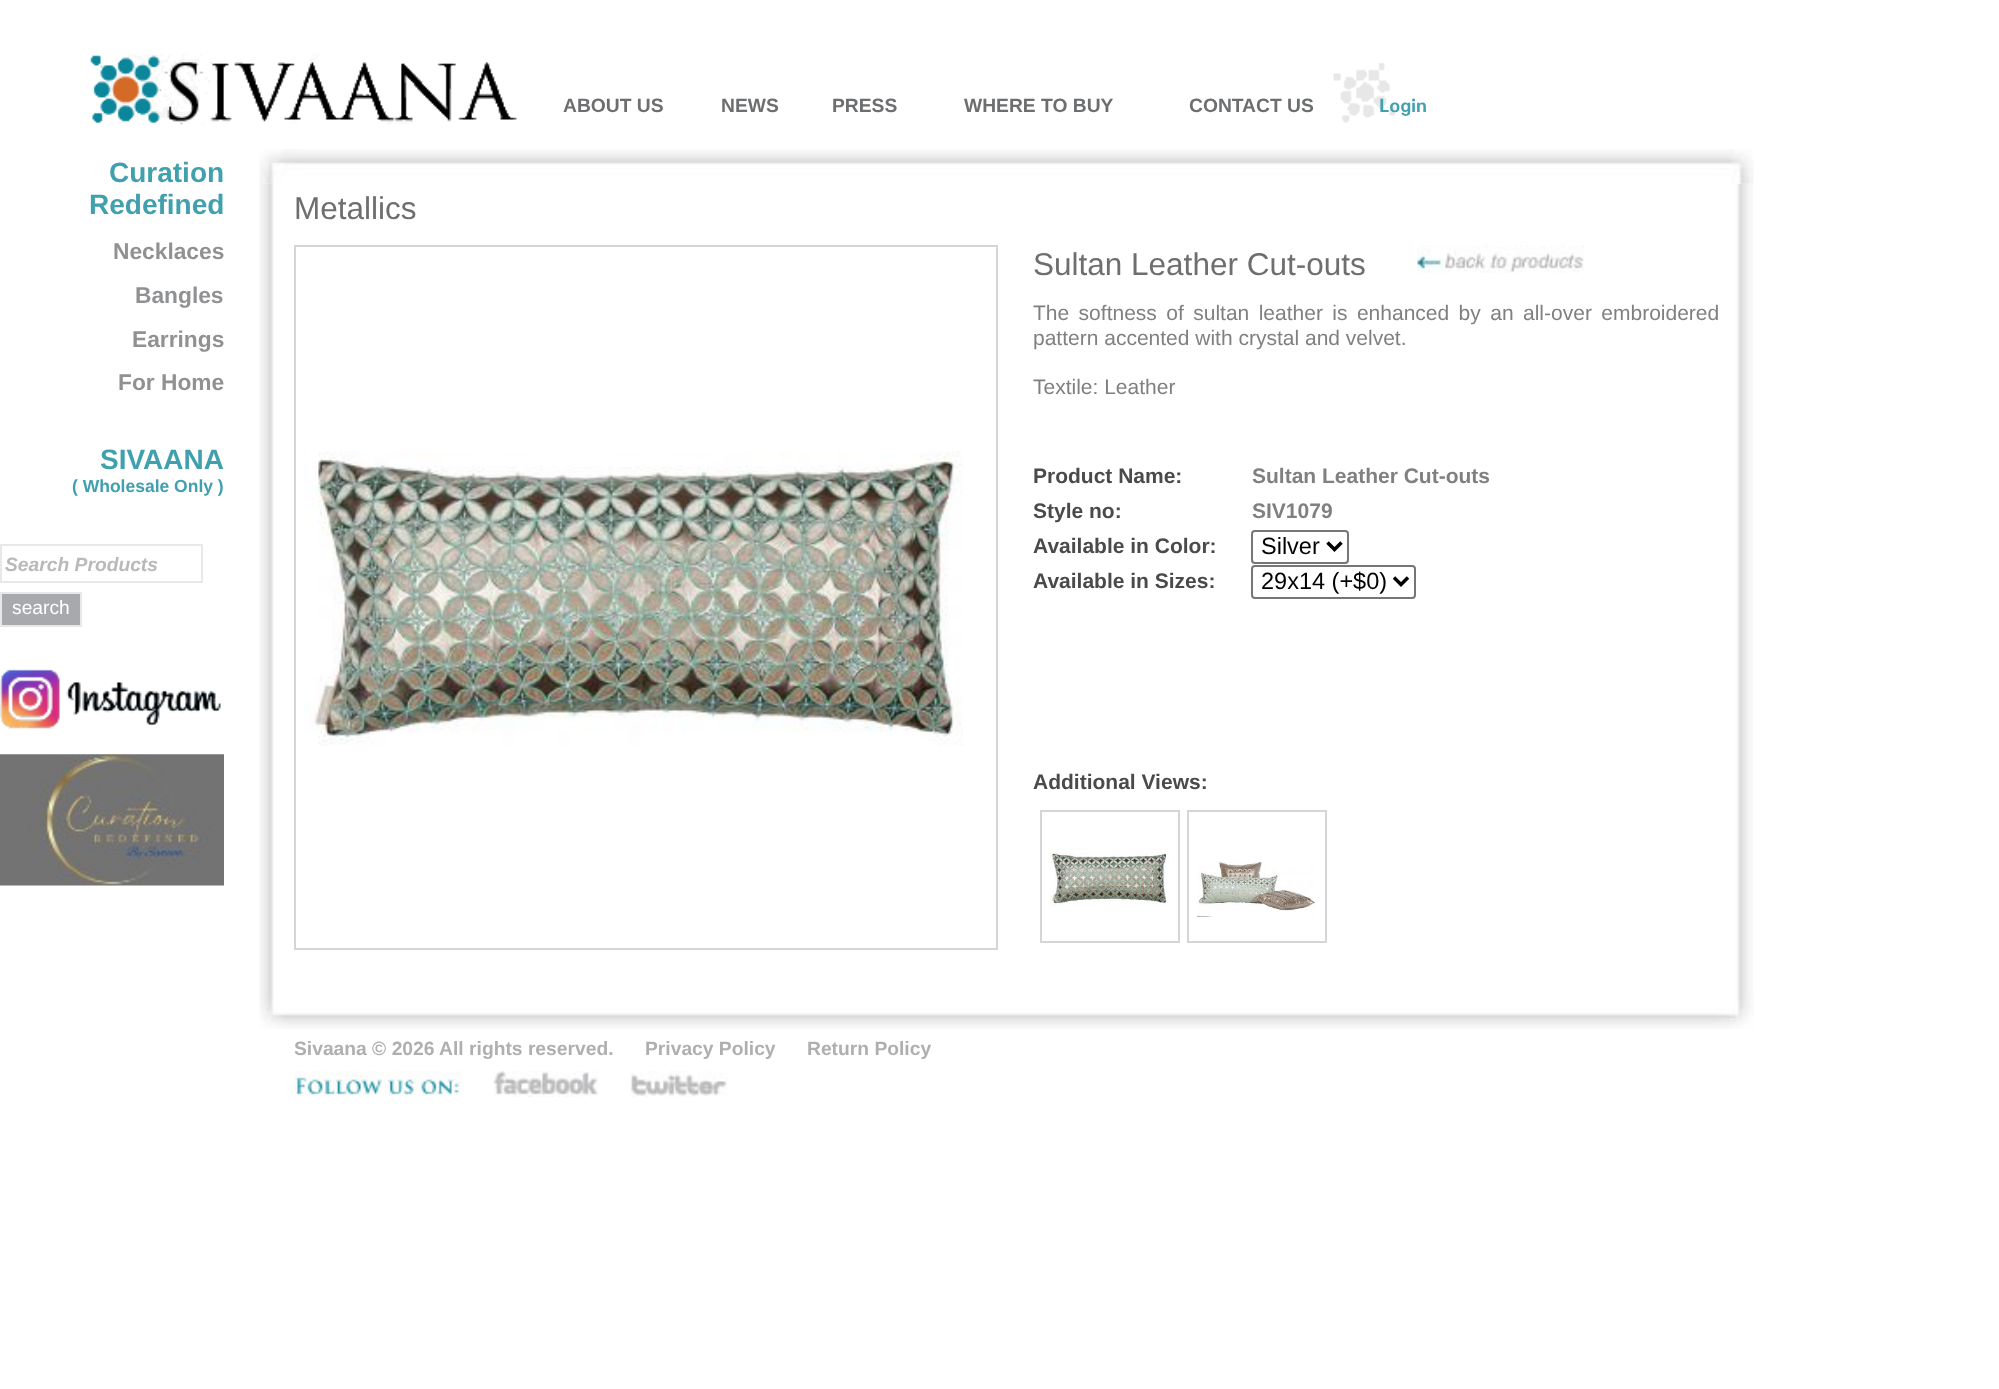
<svg xmlns="http://www.w3.org/2000/svg" width="1999" height="1389">
<rect width="100%" height="100%" fill="#fff"/>
<text x="563" y="112" style="font-family:Liberation Sans;font-size:19.25px;font-weight:bold;fill:#6d6e70">ABOUT US</text>
<text x="721" y="112" style="font-family:Liberation Sans;font-size:19.25px;font-weight:bold;fill:#6d6e70">NEWS</text>
<text x="832" y="112" style="font-family:Liberation Sans;font-size:19.25px;font-weight:bold;fill:#6d6e70">PRESS</text>
<text x="964" y="112" style="font-family:Liberation Sans;font-size:19.25px;font-weight:bold;fill:#6d6e70">WHERE TO BUY</text>
<text x="1189" y="112" style="font-family:Liberation Sans;font-size:19.25px;font-weight:bold;fill:#6d6e70">CONTACT US</text>
<image x="90" y="54" width="427" height="71" href="media/1.png"/>
<image x="1333" y="62" width="62" height="61" href="media/2.png"/>
<text x="1379" y="112" style="font-family:Univers;font-size:19.25px;font-weight:bold;fill:#40a0ae">Login</text>
<text x="109" y="182" style="font-family:Liberation Sans;font-size:28px;font-weight:bold;fill:#40a0ae">Curation</text>
<text x="89" y="214" style="font-family:Liberation Sans;font-size:28px;font-weight:bold;fill:#40a0ae">Redefined</text>
<text x="113" y="259" style="font-family:Liberation Sans;font-size:22.75px;font-weight:bold;fill:#909193">Necklaces</text>
<text x="135" y="303" style="font-family:Liberation Sans;font-size:22.75px;font-weight:bold;fill:#909193">Bangles</text>
<text x="132" y="347" style="font-family:Liberation Sans;font-size:22.75px;font-weight:bold;fill:#909193">Earrings</text>
<text x="118" y="390" style="font-family:Liberation Sans;font-size:22.75px;font-weight:bold;fill:#909193">For Home</text>
<text x="100" y="469" style="font-family:Liberation Sans;font-size:28px;font-weight:bold;fill:#40a0ae">SIVAANA</text>
<text x="72" y="492" style="font-family:Liberation Sans;font-size:17.5px;font-weight:bold;fill:#40a0ae">( Wholesale Only )</text>
<rect x="1" y="545" width="201" height="37" fill="none" stroke="#e8e8e8" stroke-width="2"/>
<text x="5" y="571" style="font-family:Liberation Sans;font-size:19.25px;font-weight:bold;font-style:italic;fill:#b9b9bb">Search Products</text>
<rect x="1" y="593" width="80" height="33" fill="#a8a9ad" stroke="#e8e8e8" stroke-width="2"/>
<text x="12" y="614" style="font-family:Liberation Sans;font-size:19.25px;fill:#fff">search</text>
<image x="0" y="669" width="221" height="60" href="media/3.png"/>
<image x="0" y="754" width="224" height="132" href="media/4.png"/>
<image x="259" y="183" width="1494" height="811" href="media/6.png"/>
<image x="259" y="149" width="1495" height="35" href="media/5.png"/>
<text x="294" y="219" style="font-family:Liberation Sans;font-size:31.5px;fill:#6d6e70">Metallics</text>
<rect x="295" y="246" width="702" height="703" fill="none" stroke="#d5d5d5" stroke-width="2"/>
<image x="304" y="451" width="659" height="295" href="media/7.png"/>
<text x="1033" y="275" style="font-family:Liberation Sans;font-size:31.5px;fill:#6d6e70">Sultan Leather Cut-outs</text>
<image x="1417" y="245" width="167" height="28" href="media/8.png"/>
<text x="1033" y="320" word-spacing="3.6" style="font-family:Liberation Sans;font-size:21px;fill:#808080">The softness of sultan leather is enhanced by an all-over embroidered</text>
<text x="1033" y="345" style="font-family:Liberation Sans;font-size:21px;fill:#808080">pattern accented with crystal and velvet.</text>
<text x="1033" y="394" style="font-family:Liberation Sans;font-size:21px;fill:#808080">Textile: Leather</text>
<text x="1033" y="483" style="font-family:Liberation Sans;font-size:21px;font-weight:bold;fill:#4a4a4a">Product Name:</text>
<text x="1252" y="483" style="font-family:Liberation Sans;font-size:21px;font-weight:bold;fill:#808080">Sultan Leather Cut-outs</text>
<text x="1033" y="518" style="font-family:Liberation Sans;font-size:21px;font-weight:bold;fill:#4a4a4a">Style no:</text>
<text x="1252" y="518" style="font-family:Liberation Sans;font-size:21px;font-weight:bold;fill:#808080">SIV1079</text>
<text x="1033" y="553" style="font-family:Liberation Sans;font-size:21px;font-weight:bold;fill:#4a4a4a">Available in Color:</text>
<rect x="1252" y="531" width="96" height="32" rx="3" fill="none" stroke="#767676" stroke-width="2"/>
<path d="M1327.5 542.5l7 7l7-7" fill="none" stroke="#000" stroke-width="3.5"/>
<text x="1261" y="554" style="font-family:Liberation Sans;font-size:23.5px;fill:#000">Silver</text>
<text x="1033" y="588" style="font-family:Liberation Sans;font-size:21px;font-weight:bold;fill:#4a4a4a">Available in Sizes:</text>
<rect x="1252" y="566" width="163" height="32" rx="3" fill="none" stroke="#767676" stroke-width="2"/>
<path d="M1394 577.5l7 7l7-7" fill="none" stroke="#000" stroke-width="3.5"/>
<text x="1261" y="589" style="font-family:Liberation Sans;font-size:23.5px;fill:#000">29x14 (+$0)</text>
<text x="1033" y="789" style="font-family:Liberation Sans;font-size:21px;font-weight:bold;fill:#4a4a4a">Additional Views:</text>
<rect x="1041" y="811" width="138" height="131" fill="none" stroke="#d5d5d5" stroke-width="2"/>
<image x="1050" y="847" width="119" height="60" href="media/9.png"/>
<rect x="1188" y="811" width="138" height="131" fill="none" stroke="#d5d5d5" stroke-width="2"/>
<image x="1197" y="861" width="119" height="56" href="media/10.png"/>
<image x="259" y="994" width="1495" height="35" href="media/11.png"/>
<text x="294" y="1055" style="font-family:Liberation Sans;font-size:19.25px;font-weight:bold;fill:#afafaf">Sivaana © 2026 All rights reserved.</text>
<text x="645" y="1055" style="font-family:Liberation Sans;font-size:19.25px;font-weight:bold;fill:#afafaf">Privacy Policy</text>
<text x="807" y="1055" style="font-family:Liberation Sans;font-size:19.25px;font-weight:bold;fill:#afafaf">Return Policy</text>
<image x="294" y="1071" width="168" height="25" href="media/12.png"/>
<image x="493" y="1071" width="106" height="26" href="media/13.png"/>
<image x="630" y="1071" width="98" height="26" href="media/14.png"/>
</svg>
